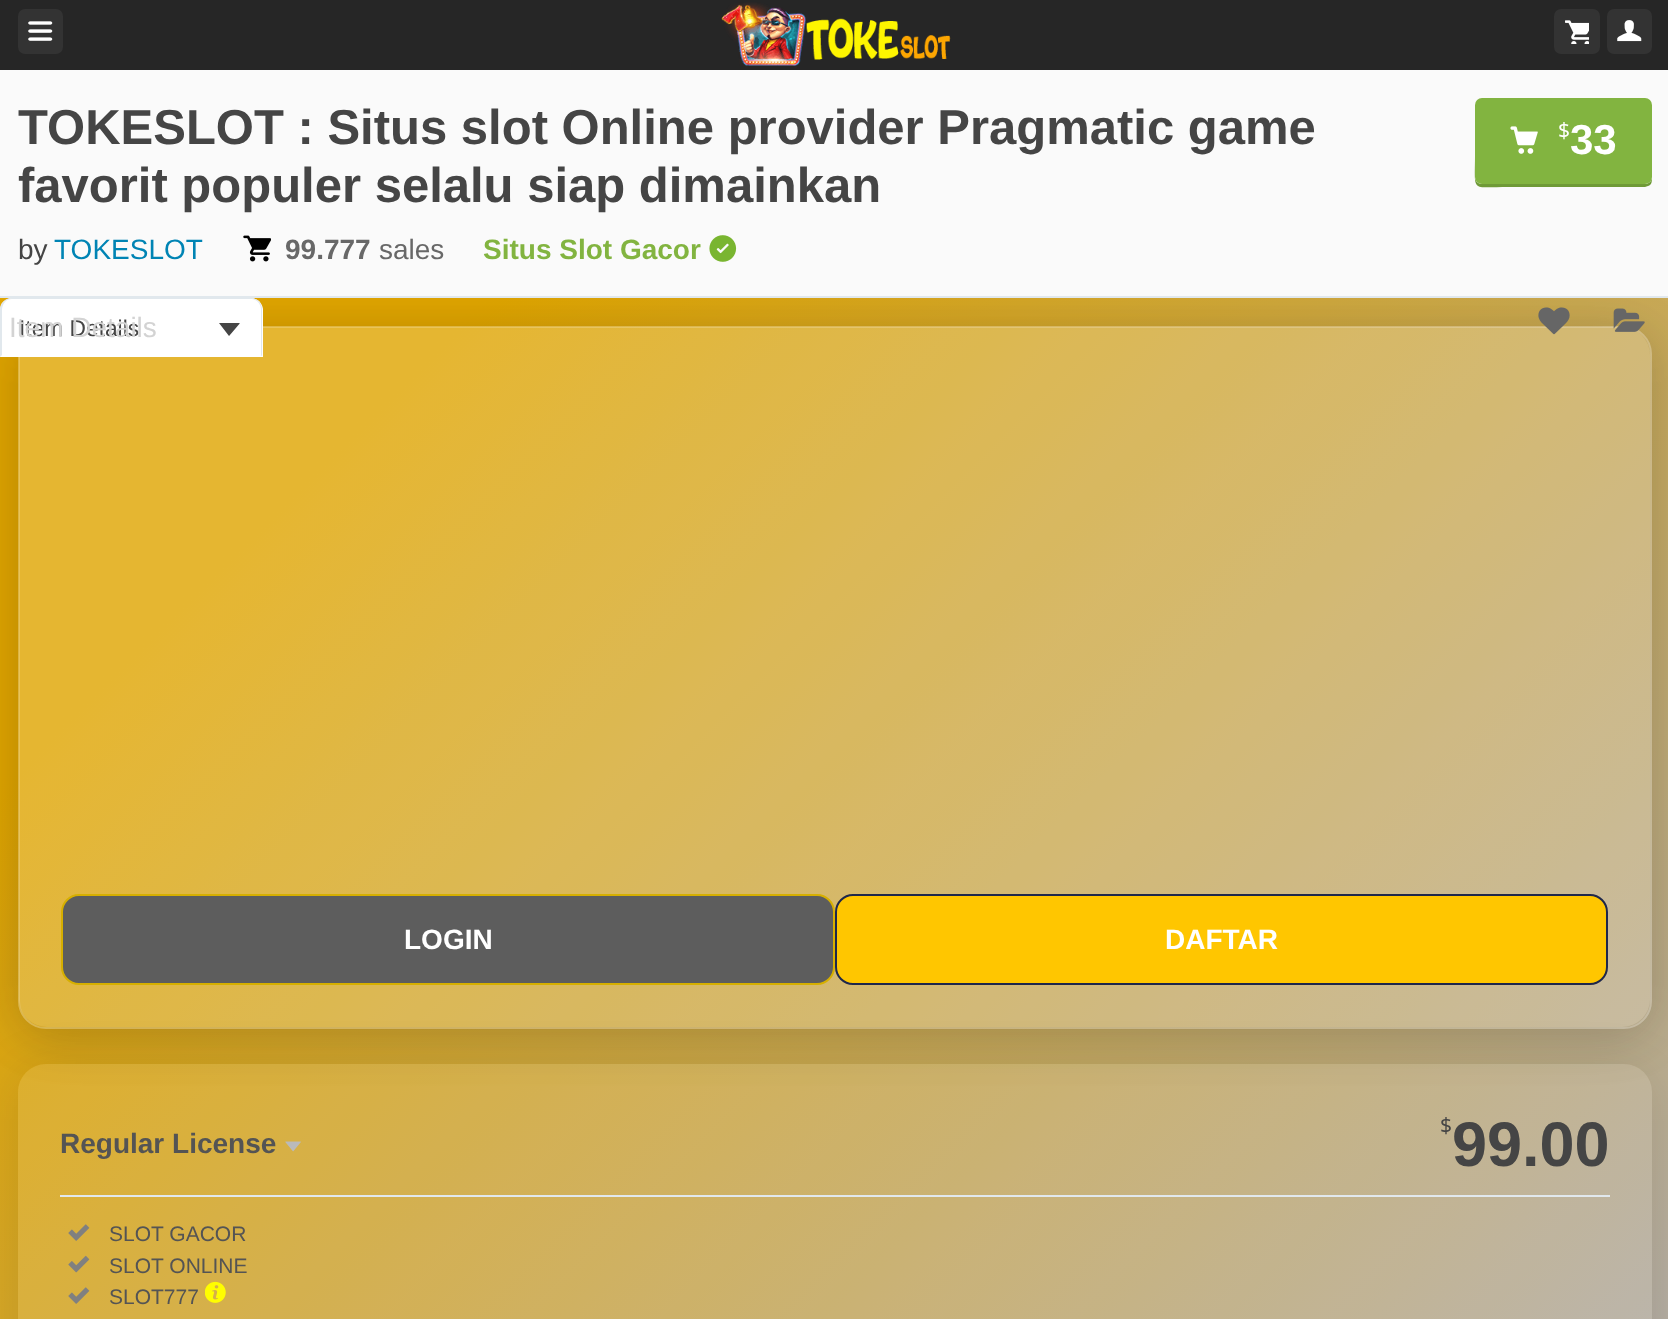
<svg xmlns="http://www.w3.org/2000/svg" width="1668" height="1319">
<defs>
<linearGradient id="g1" gradientUnits="userSpaceOnUse" x1="1582" y1="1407" x2="87" y2="-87"><stop offset="0" stop-color="#b4ada2"/><stop offset="0.74" stop-color="#e0a500"/></linearGradient>
<clipPath id="clip1"><path d="M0 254h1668v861h-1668zm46 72h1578c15.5 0 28 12.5 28 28v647c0 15.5-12.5 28-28 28h-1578c-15.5 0-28-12.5-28-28v-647c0-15.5 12.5-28 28-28z" clip-rule="evenodd"/></clipPath>
<clipPath id="clip2"><path d="M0 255h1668v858h-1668zm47 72h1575c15.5 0 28 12.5 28 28v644c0 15.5-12.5 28-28 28h-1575c-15.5 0-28-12.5-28-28v-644c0-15.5 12.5-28 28-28z" clip-rule="evenodd"/></clipPath>
<clipPath id="clip3"><path d="M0 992h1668v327h-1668zm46 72h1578c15.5 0 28 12.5 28 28v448c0 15.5-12.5 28-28 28h-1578c-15.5 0-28-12.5-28-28v-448c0-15.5 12.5-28 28-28z" clip-rule="evenodd"/></clipPath>
</defs>
<rect width="100%" height="100%" fill="#fff"/>
<rect y="298" width="1668" height="1021" fill="url(#g1)"/>
<rect width="1668" height="70" fill="#262626"/>
<rect x="18" y="9" width="45" height="45" rx="7" fill="#333"/>
<image x="28" y="21" width="25" height="20" href="media/1.png"/>
<image x="721" y="2" width="230" height="66" href="media/2.png"/>
<rect x="1554" y="9" width="46" height="45" rx="7" fill="#333"/>
<image x="1565" y="20" width="24" height="24" href="media/3.png"/>
<rect x="1607" y="9" width="45" height="45" rx="7" fill="#333"/>
<image x="1617" y="20" width="25" height="22" href="media/4.png"/>
<g clip-path="url(#clip1)">
<rect x="18" y="333" width="1634" height="703" rx="28" fill="#0000001a" filter="blur(26px)"/>
</g>
<rect x="18" y="326" width="1634" height="703" rx="28" fill="#ffffff1a"/>
<rect x="19" y="327" width="1632" height="701" rx="27" fill="none" stroke="#ffffff33" stroke-width="2"/>
<g clip-path="url(#clip2)">
<rect x="19" y="334" width="1631" height="700" rx="28" fill="#0000001a" filter="blur(26px)"/>
</g>
<rect y="70" width="1668" height="226" fill="#fafafa"/>
<rect y="296" width="1668" height="2" fill="#e1e8ed"/>
<text x="18" y="144" style="font-family:Liberation Sans;font-size:49px;font-weight:bold;fill:#454545">TOKESLOT : Situs slot Online provider Pragmatic game</text>
<text x="18" y="202" style="font-family:Liberation Sans;font-size:49px;font-weight:bold;fill:#454545">favorit populer selalu siap dimainkan</text>
<path d="M1475 107v49c0 37-5 31 34 31h136l3-1c4-1 4-5 4-9c0 4-3 7-7 7h-163c-4 0-7-3-7-7z" fill="#6f9a37"/>
<rect x="1475" y="98" width="177" height="86" rx="7" fill="#82b440"/>
<image x="1510" y="126" width="28" height="28" href="media/5.png"/>
<text x="1558" y="138" style="font-family:Noto Sans;font-size:21px;fill:#fff">$</text>
<text x="1570" y="154" style="font-family:Liberation Sans;font-size:42px;font-weight:bold;fill:#fff">33</text>
<text x="18" y="259" style="font-family:Liberation Sans;font-size:28px;fill:#454545">by</text>
<text x="54" y="259" style="font-family:Liberation Sans;font-size:28px;fill:#0084b4">TOKESLOT</text>
<image x="243" y="235" width="28" height="27" href="media/6.png"/>
<text x="285" y="259" style="font-family:Liberation Sans;font-size:28px;font-weight:bold;fill:#686868">99.777</text>
<text x="379" y="259" style="font-family:Liberation Sans;font-size:28px;fill:#686868">sales</text>
<text x="483" y="259" style="font-family:Liberation Sans;font-size:28px;font-weight:bold;fill:#82b440">Situs Slot Gacor</text>
<image x="709" y="235" width="28" height="27" href="media/7.png"/>
<rect x="19" y="327" width="1631" height="700" rx="28" fill="#ffffff1a"/>
<path d="M12 298h239c6.5 0 12 5.5 12 12v47h-263v-47c0-6.5 5.5-12 12-12z" fill="#fff"/>
<text x="19" y="336" style="font-family:Liberation Sans;font-size:22.75px;fill:#454545">Item Details</text>
<text x="9" y="337" style="font-family:Liberation Sans;font-size:28px;fill:#d3d3d3">Item Details</text>
<path d="M12 298c-3 0-6 1-8 3l1 1c1-2 4-3 7-3h238c3 0 6 1 8 3l1-1c-3-2-5-3-9-3z" fill="#e1e8ed"/>
<path d="M262 356v-46c0-4-1-6-3-9l-1 1c2 2 3 5 3 8v45h-1z" fill="#e1e8ed"/>
<path d="M262 357l-2-2h-258l-2 2z" fill="#fff"/>
<path d="M0 357l2-2v-45c0-3 1-6 3-8l-1-1c-3 2-4 5-4 9z" fill="#e1e8ed"/>
<path d="M229.5 335.5l-.5 .5l-10-13h17c4.5 0 4.5-.5 2 2.5z" fill="#454545"/>
<image x="1538" y="307" width="32" height="28" href="media/8.png"/>
<image x="1613" y="308" width="32" height="24" href="media/9.png"/>
<rect x="62" y="895" width="772" height="89" rx="17" fill="#5d5d5d" stroke="#d6af00" stroke-width="2"/>
<text x="404" y="949" style="font-family:Liberation Sans;font-size:28px;font-weight:bold;fill:#fff">LOGIN</text>
<rect x="836" y="895" width="771" height="89" rx="17" fill="#ffc600" stroke="#1e274b" stroke-width="2"/>
<text x="1165" y="949" style="font-family:Liberation Sans;font-size:28px;font-weight:bold;fill:#fff">DAFTAR</text>
<g clip-path="url(#clip3)">
<rect x="18" y="1071" width="1634" height="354" rx="28" fill="#0000001a" filter="blur(26px)"/>
</g>
<rect x="18" y="1064" width="1634" height="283" rx="28" fill="#ffffff1a"/>
<text x="60" y="1153" style="font-family:Liberation Sans;font-size:28px;font-weight:bold;fill:#545454">Regular License</text>
<image x="285" y="1141" width="16" height="11" href="media/10.png"/>
<text x="1440" y="1133" style="font-family:Noto Sans;font-size:21px;fill:#454545">$</text>
<text x="1452" y="1166" style="font-family:Liberation Sans;font-size:63px;font-weight:bold;fill:#454545">99.00</text>
<rect x="60" y="1195" width="1550" height="2" fill="#e1e8ed"/>
<image x="68" y="1224" width="22" height="17" href="media/11.png"/>
<text x="109" y="1241" style="font-family:Liberation Sans;font-size:21px;fill:#545454">SLOT GACOR</text>
<image x="68" y="1255" width="22" height="18" href="media/12.png"/>
<text x="109" y="1273" style="font-family:Liberation Sans;font-size:21px;fill:#545454">SLOT ONLINE</text>
<image x="68" y="1287" width="22" height="17" href="media/13.png"/>
<text x="109" y="1304" style="font-family:Liberation Sans;font-size:21px;fill:#545454">SLOT777</text>
<image x="205" y="1281" width="21" height="22" href="media/14.png"/>
</svg>
